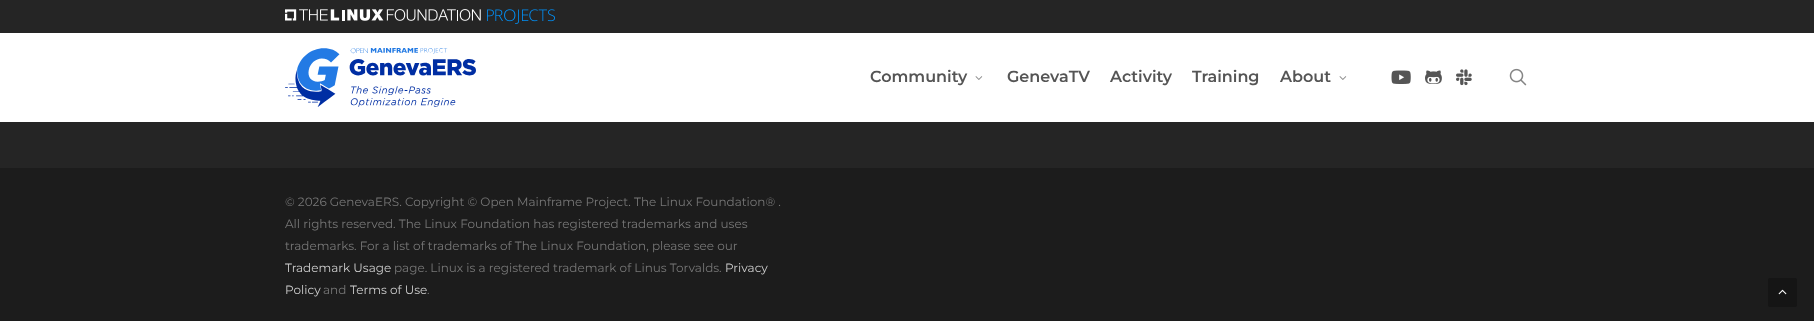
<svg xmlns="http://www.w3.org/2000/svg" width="1814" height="321">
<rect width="100%" height="100%" fill="#252525"/>
<image x="285" y="9" width="270" height="15" href="media/1.png"/>
<rect y="33" width="1814" height="89" fill="#fff"/>
<image x="285" y="48" width="191" height="59" href="media/2.png"/>
<text x="870" y="82" style="font-family:Montserrat;font-size:16px;font-weight:600;fill:#555">Community</text>
<image x="975" y="76" width="8" height="4" href="media/3.png"/>
<text x="1007" y="82" style="font-family:Montserrat;font-size:16px;font-weight:600;fill:#555">GenevaTV</text>
<text x="1110" y="82" style="font-family:Montserrat;font-size:16px;font-weight:600;fill:#555">Activity</text>
<text x="1192" y="82" style="font-family:Montserrat;font-size:16px;font-weight:600;fill:#555">Training</text>
<text x="1280" y="82" style="font-family:Montserrat;font-size:16px;font-weight:600;fill:#555">About</text>
<image x="1339" y="76" width="8" height="4" href="media/3.png"/>
<image x="1391" y="70" width="20" height="14" href="media/4.png"/>
<image x="1425" y="70" width="17" height="14" href="media/5.png"/>
<image x="1456" y="69" width="16" height="17" href="media/6.png"/>
<image x="1509" y="68" width="18" height="18" href="media/7.png"/>
<rect y="168" width="1814" height="153" fill="#1c1c1c"/>
<text x="285" y="206" style="font-family:Montserrat;font-size:12px;fill:#777">© 2026 GenevaERS. Copyright © Open Mainframe Project. The Linux Foundation® .</text>
<text x="285" y="228" style="font-family:Montserrat;font-size:12px;fill:#777">All rights reserved. The Linux Foundation has registered trademarks and uses</text>
<text x="285" y="250" style="font-family:Montserrat;font-size:12px;fill:#777">trademarks. For a list of trademarks of The Linux Foundation, please see our</text>
<text x="285" y="272" style="font-family:Montserrat;font-size:12px;fill:#ccc">Trademark Usage</text>
<text x="394" y="272" style="font-family:Montserrat;font-size:12px;fill:#777">page. Linux is a registered trademark of Linus Torvalds.</text>
<text x="725" y="272" style="font-family:Montserrat;font-size:12px;fill:#ccc">Privacy</text>
<text x="285" y="294" style="font-family:Montserrat;font-size:12px;fill:#ccc">Policy</text>
<text x="323" y="294" style="font-family:Montserrat;font-size:12px;fill:#777">and</text>
<text x="350" y="294" style="font-family:Montserrat;font-size:12px;fill:#ccc">Terms of Use</text>
<text x="427" y="294" style="font-family:Montserrat;font-size:12px;fill:#777">.</text>
<rect x="1768" y="278" width="29" height="29" rx="2" fill="#151515"/>
<image x="1778" y="289" width="9" height="6" href="media/8.png"/>
</svg>
